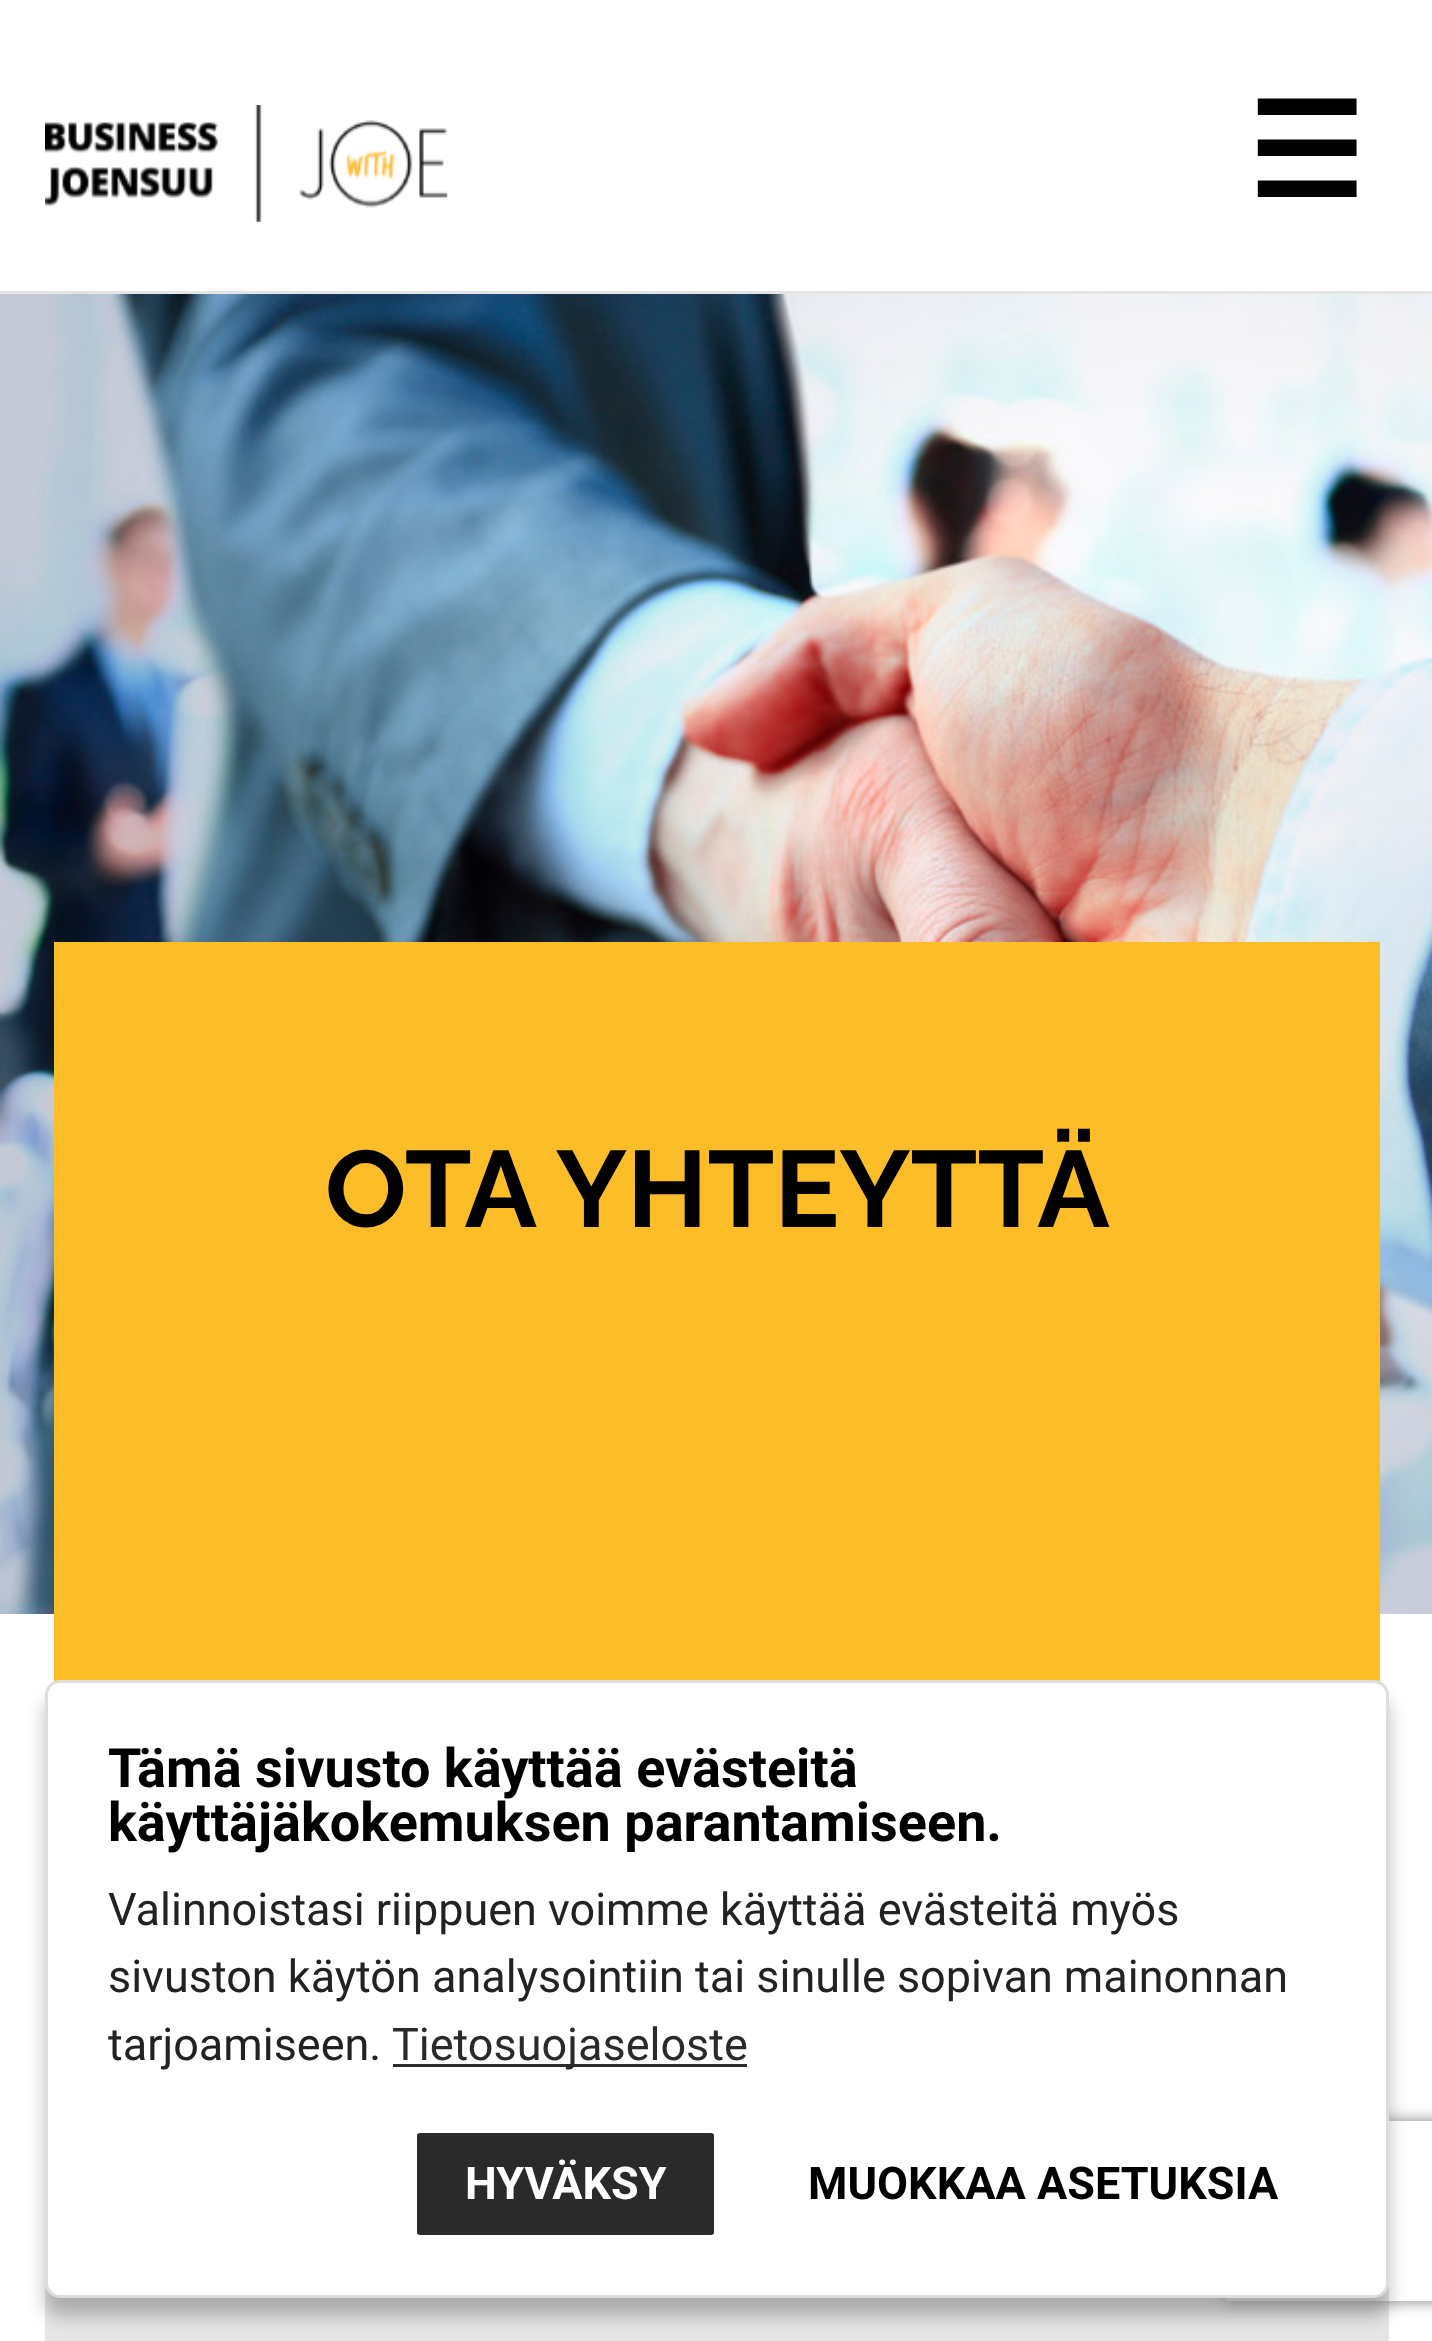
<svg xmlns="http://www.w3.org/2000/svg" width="1432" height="2341">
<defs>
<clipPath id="clip1"><path d="M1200 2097h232v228h-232zm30 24h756c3.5 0 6 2.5 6 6v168c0 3.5-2.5 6-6 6h-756c-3.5 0-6-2.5-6-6v-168c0-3.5 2.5-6 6-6z" clip-rule="evenodd"/></clipPath>
</defs>
<rect width="100%" height="100%" fill="#fff"/>
<rect y="291" width="1432" height="3" fill="#e5e5e5"/>
<image x="45" y="105" width="403" height="117" href="media/1.png"/>
<text x="1247" y="197" style="font-family:DejaVu Sans;font-size:130px;font-weight:bold;fill:#000">☰</text>
<image x="0" y="294" width="1432" height="1320" href="media/2.png"/>
<rect x="54" y="942" width="1326" height="740" fill="#fcbd29"/>
<text x="325" y="1227" style="font-family:Raleway;font-size:108px;font-weight:100;fill:#000">OTA YHTEYTTÄ</text>
<rect x="45" y="2283" width="1344" height="58" fill="#e6e6e6"/>
<rect x="45" y="1698" width="1344" height="618" rx="15" fill="#00000040" filter="blur(9px)"/>
<g clip-path="url(#clip1)">
<rect x="1224" y="2121" width="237" height="180" rx="6" fill="#808080" filter="blur(7.5px)"/>
</g>
<rect x="46.5" y="1681.5" width="1341" height="615" rx="13.5" fill="#fff" stroke="#ddd" stroke-width="3"/>
<text x="108" y="1787" style="font-family:Roboto;font-size:54px;font-weight:bold;fill:#000">Tämä sivusto käyttää evästeitä</text>
<text x="108" y="1841" style="font-family:Roboto;font-size:54px;font-weight:bold;fill:#000">käyttäjäkokemuksen parantamiseen.</text>
<text x="108" y="1925" style="font-family:Roboto;font-size:45px;fill:#222">Valinnoistasi riippuen voimme käyttää evästeitä myös</text>
<text x="108" y="1992" style="font-family:Roboto;font-size:45px;fill:#222">sivuston käytön analysointiin tai sinulle sopivan mainonnan</text>
<text x="108" y="2060" style="font-family:Roboto;font-size:45px;fill:#222">tarjoamiseen.</text>
<rect x="393" y="2064" width="354" height="3" fill="#2a2a2a"/>
<text x="392" y="2060" style="font-family:Roboto;font-size:45px;fill:#2a2a2a">Tietosuojaseloste</text>
<rect x="417" y="2133" width="297" height="102" rx="3" fill="#2a2a2a"/>
<text x="465" y="2199" style="font-family:Roboto;font-size:45px;font-weight:bold;fill:#fff">HYVÄKSY</text>
<text x="808" y="2199" style="font-family:Roboto;font-size:45px;font-weight:bold;fill:#000">MUOKKAA ASETUKSIA</text>
</svg>
